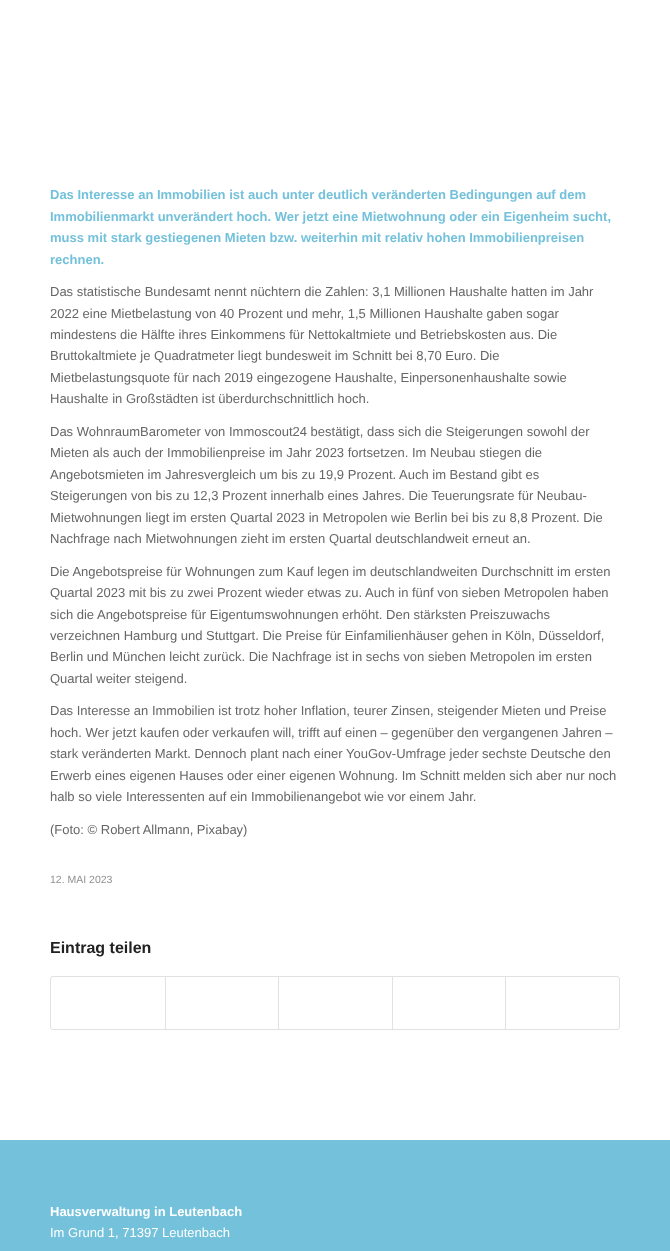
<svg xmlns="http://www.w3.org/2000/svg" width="670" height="1251">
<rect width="100%" height="100%" fill="#fff"/>
<text x="50" y="199" style="font-family:Liberation Sans;font-size:13px;font-weight:bold;fill:#74c1db">Das Interesse an Immobilien ist auch unter deutlich veränderten Bedingungen auf dem</text>
<text x="50" y="221" style="font-family:Liberation Sans;font-size:13px;font-weight:bold;fill:#74c1db">Immobilienmarkt unverändert hoch. Wer jetzt eine Mietwohnung oder ein Eigenheim sucht,</text>
<text x="50" y="242" style="font-family:Liberation Sans;font-size:13px;font-weight:bold;fill:#74c1db">muss mit stark gestiegenen Mieten bzw. weiterhin mit relativ hohen Immobilienpreisen</text>
<text x="50" y="264" style="font-family:Liberation Sans;font-size:13px;font-weight:bold;fill:#74c1db">rechnen.</text>
<text x="50" y="296" style="font-family:Liberation Sans;font-size:13px;fill:#666">Das statistische Bundesamt nennt nüchtern die Zahlen: 3,1 Millionen Haushalte hatten im Jahr</text>
<text x="50" y="318" style="font-family:Liberation Sans;font-size:13px;fill:#666">2022 eine Mietbelastung von 40 Prozent und mehr, 1,5 Millionen Haushalte gaben sogar</text>
<text x="50" y="339" style="font-family:Liberation Sans;font-size:13px;fill:#666">mindestens die Hälfte ihres Einkommens für Nettokaltmiete und Betriebskosten aus. Die</text>
<text x="50" y="360" style="font-family:Liberation Sans;font-size:13px;fill:#666">Bruttokaltmiete je Quadratmeter liegt bundesweit im Schnitt bei 8,70 Euro. Die</text>
<text x="50" y="382" style="font-family:Liberation Sans;font-size:13px;fill:#666">Mietbelastungsquote für nach 2019 eingezogene Haushalte, Einpersonenhaushalte sowie</text>
<text x="50" y="403" style="font-family:Liberation Sans;font-size:13px;fill:#666">Haushalte in Großstädten ist überdurchschnittlich hoch.</text>
<text x="50" y="436" style="font-family:Liberation Sans;font-size:13px;fill:#666">Das WohnraumBarometer von Immoscout24 bestätigt, dass sich die Steigerungen sowohl der</text>
<text x="50" y="457" style="font-family:Liberation Sans;font-size:13px;fill:#666">Mieten als auch der Immobilienpreise im Jahr 2023 fortsetzen. Im Neubau stiegen die</text>
<text x="50" y="479" style="font-family:Liberation Sans;font-size:13px;fill:#666">Angebotsmieten im Jahresvergleich um bis zu 19,9 Prozent. Auch im Bestand gibt es</text>
<text x="50" y="500" style="font-family:Liberation Sans;font-size:13px;fill:#666">Steigerungen von bis zu 12,3 Prozent innerhalb eines Jahres. Die Teuerungsrate für Neubau-</text>
<text x="50" y="522" style="font-family:Liberation Sans;font-size:13px;fill:#666">Mietwohnungen liegt im ersten Quartal 2023 in Metropolen wie Berlin bei bis zu 8,8 Prozent. Die</text>
<text x="50" y="543" style="font-family:Liberation Sans;font-size:13px;fill:#666">Nachfrage nach Mietwohnungen zieht im ersten Quartal deutschlandweit erneut an.</text>
<text x="50" y="576" style="font-family:Liberation Sans;font-size:13px;fill:#666">Die Angebotspreise für Wohnungen zum Kauf legen im deutschlandweiten Durchschnitt im ersten</text>
<text x="50" y="597" style="font-family:Liberation Sans;font-size:13px;fill:#666">Quartal 2023 mit bis zu zwei Prozent wieder etwas zu. Auch in fünf von sieben Metropolen haben</text>
<text x="50" y="619" style="font-family:Liberation Sans;font-size:13px;fill:#666">sich die Angebotspreise für Eigentumswohnungen erhöht. Den stärksten Preiszuwachs</text>
<text x="50" y="640" style="font-family:Liberation Sans;font-size:13px;fill:#666">verzeichnen Hamburg und Stuttgart. Die Preise für Einfamilienhäuser gehen in Köln, Düsseldorf,</text>
<text x="50" y="661" style="font-family:Liberation Sans;font-size:13px;fill:#666">Berlin und München leicht zurück. Die Nachfrage ist in sechs von sieben Metropolen im ersten</text>
<text x="50" y="683" style="font-family:Liberation Sans;font-size:13px;fill:#666">Quartal weiter steigend.</text>
<text x="50" y="715" style="font-family:Liberation Sans;font-size:13px;fill:#666">Das Interesse an Immobilien ist trotz hoher Inflation, teurer Zinsen, steigender Mieten und Preise</text>
<text x="50" y="737" style="font-family:Liberation Sans;font-size:13px;fill:#666">hoch. Wer jetzt kaufen oder verkaufen will, trifft auf einen – gegenüber den vergangenen Jahren –</text>
<text x="50" y="758" style="font-family:Liberation Sans;font-size:13px;fill:#666">stark veränderten Markt. Dennoch plant nach einer YouGov-Umfrage jeder sechste Deutsche den</text>
<text x="50" y="780" style="font-family:Liberation Sans;font-size:13px;fill:#666">Erwerb eines eigenen Hauses oder einer eigenen Wohnung. Im Schnitt melden sich aber nur noch</text>
<text x="50" y="801" style="font-family:Liberation Sans;font-size:13px;fill:#666">halb so viele Interessenten auf ein Immobilienangebot wie vor einem Jahr.</text>
<text x="50" y="834" style="font-family:Liberation Sans;font-size:13px;fill:#666">(Foto: © Robert Allmann, Pixabay)</text>
<text x="50" y="883" style="font-family:Liberation Sans;font-size:10.5px;fill:#919191">12. MAI 2023</text>
<text x="50" y="953" style="font-family:Liberation Sans;font-size:16px;font-weight:bold;fill:#222">Eintrag teilen</text>
<rect x="50.5" y="976.5" width="569" height="53" rx="2.5" fill="none" stroke="#e1e1e1"/>
<rect x="165" y="977" width="1" height="52" fill="#e1e1e1"/>
<rect x="278" y="977" width="1" height="52" fill="#e1e1e1"/>
<rect x="392" y="977" width="1" height="52" fill="#e1e1e1"/>
<rect x="505" y="977" width="1" height="52" fill="#e1e1e1"/>
<rect y="1140" width="670" height="111" fill="#74c1db"/>
<text x="50" y="1216" style="font-family:Liberation Sans;font-size:13px;font-weight:bold;fill:#fff">Hausverwaltung in Leutenbach</text>
<text x="50" y="1237" style="font-family:Liberation Sans;font-size:13px;fill:#fff">Im Grund 1, 71397 Leutenbach</text>
</svg>
